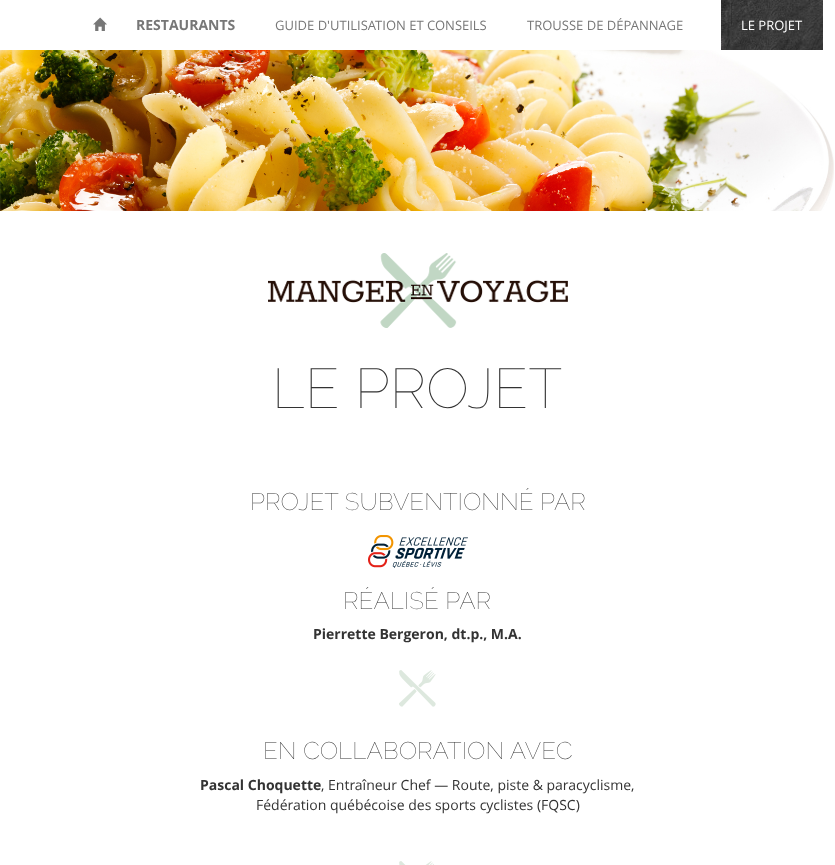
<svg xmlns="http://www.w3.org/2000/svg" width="835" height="865">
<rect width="100%" height="100%" fill="#fff"/>
<image x="93" y="17" width="14" height="14" href="media/1.png"/>
<text x="136" y="30" style="font-family:Open Sans;font-size:14px;font-weight:bold;fill:#777">RESTAURANTS</text>
<text x="275" y="30" style="font-family:Open Sans;font-size:13px;fill:#777">GUIDE D'UTILISATION ET CONSEILS</text>
<text x="527" y="30" style="font-family:Open Sans;font-size:13px;fill:#777">TROUSSE DE DÉPANNAGE</text>
<image x="721" y="0" width="102" height="50" href="media/2.png"/>
<text x="741" y="30" style="font-family:Open Sans;font-size:13px;fill:#fff">LE PROJET</text>
<image x="0" y="50" width="834" height="161" href="media/3.png"/>
<image x="268" y="253" width="300" height="75" href="media/4.png"/>
<text x="272" y="408" style="font-family:Raleway;font-size:56px;font-weight:100;fill:#333">LE PROJET</text>
<text x="250" y="510" style="font-family:Raleway;font-size:24px;font-weight:100;fill:#333">PROJET SUBVENTIONNÉ PAR</text>
<image x="368" y="535" width="100" height="33" href="media/5.png"/>
<text x="343" y="609" style="font-family:Raleway;font-size:24px;font-weight:100;fill:#333">RÉALISÉ PAR</text>
<text x="313" y="639" style="font-family:Open Sans;font-size:14px;font-weight:bold;fill:#333">Pierrette Bergeron, dt.p., M.A.</text>
<image x="399" y="670" width="37" height="37" href="media/6.png"/>
<text x="263" y="759" style="font-family:Raleway;font-size:24px;font-weight:100;fill:#333">EN COLLABORATION AVEC</text>
<text x="200" y="790" style="font-family:Open Sans;font-size:14px;font-weight:bold;fill:#333">Pascal Choquette</text>
<text x="321" y="790" style="font-family:Open Sans;font-size:14px;fill:#333">, Entraîneur Chef — Route, piste &amp; paracyclisme,</text>
<text x="256" y="810" style="font-family:Open Sans;font-size:14px;fill:#333">Fédération québécoise des sports cyclistes (FQSC)</text>
<image x="399" y="861" width="35" height="4" href="media/7.png"/>
</svg>
